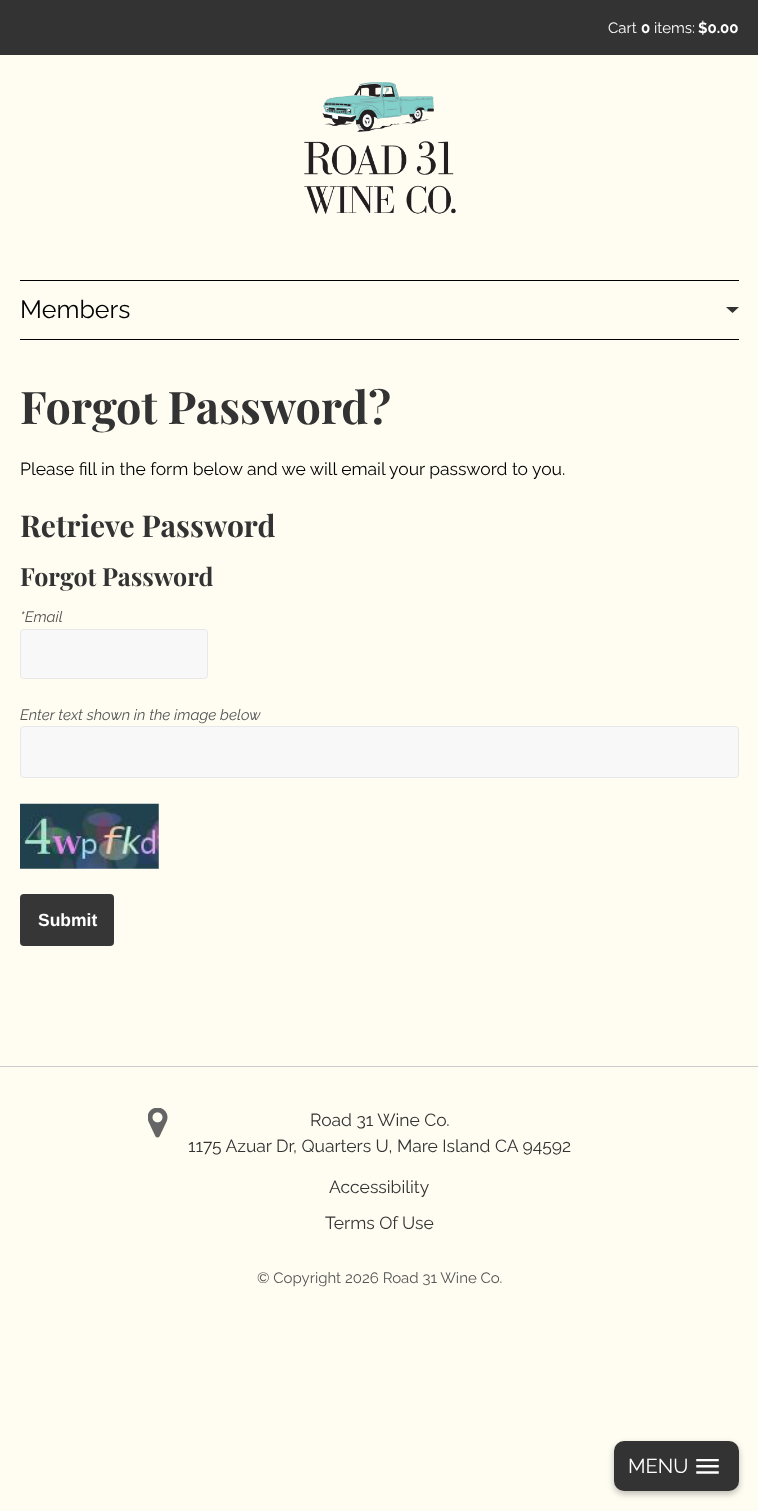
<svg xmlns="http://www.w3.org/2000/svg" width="758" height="1511">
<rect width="100%" height="100%" fill="#fffdf2"/>
<rect width="758" height="55" fill="#333"/>
<text x="608" y="33" style="font-family:Raleway;font-size:15px;fill:#fff">Cart</text>
<text x="641" y="33" style="font-family:Raleway;font-size:15px;font-weight:bold;fill:#fff">0</text>
<text x="654" y="33" style="font-family:Raleway;font-size:15px;fill:#fff">items:</text>
<text x="698" y="33" style="font-family:Raleway;font-size:15px;font-weight:bold;fill:#fff">$0.00</text>
<image x="304" y="82" width="152" height="132" href="media/1.png"/>
<rect x="20" y="280" width="719" height="1" fill="#000"/>
<rect x="20" y="339" width="719" height="1" fill="#000"/>
<text x="20" y="318" style="font-family:Raleway;font-size:25px;fill:#000">Members</text>
<path d="M726 307h13l-6.5 6z" fill="#333"/>
<text x="20" y="424" style="font-family:Playfair Display;font-size:45px;font-weight:bold;fill:#333">Forgot Password?</text>
<text x="20" y="475" style="font-family:Raleway;font-size:17.5px;fill:#000">Please fill in the form below and we will email your password to you.</text>
<text x="20" y="537" style="font-family:Playfair Display;font-size:30px;font-weight:bold;fill:#333">Retrieve Password</text>
<text x="20" y="586" style="font-family:Playfair Display;font-size:25px;font-weight:bold;fill:#333">Forgot Password</text>
<text x="20" y="622" style="font-family:Raleway;font-size:15px;font-style:italic;fill:#555">*Email</text>
<rect x="20.5" y="629.5" width="187" height="49" rx="3.5" fill="#f8f8f8" stroke="#e8e8e8"/>
<text x="20" y="720" style="font-family:Raleway;font-size:15px;font-style:italic;fill:#555">Enter text shown in the image below</text>
<rect x="20.5" y="726.5" width="718" height="51" rx="3.5" fill="#f8f8f8" stroke="#e8e8e8"/>
<image x="20" y="803" width="139" height="66" href="media/2.png"/>
<rect x="20" y="894" width="94" height="52" rx="4" fill="#363636"/>
<text x="38" y="926" style="font-family:Liberation Sans;font-size:17.5px;font-weight:bold;fill:#fff">Submit</text>
<rect y="1066" width="758" height="1" fill="#ccc"/>
<image x="148" y="1108" width="20" height="30" href="media/3.png"/>
<text x="310" y="1126" style="font-family:Raleway;font-size:17.5px;fill:#333">Road 31 Wine Co.</text>
<text x="188" y="1152" style="font-family:Raleway;font-size:17.5px;fill:#333">1175 Azuar Dr, Quarters U, Mare Island CA 94592</text>
<text x="329" y="1193" style="font-family:Raleway;font-size:17.5px;fill:#333">Accessibility</text>
<text x="325" y="1229" style="font-family:Raleway;font-size:17.5px;fill:#333">Terms Of Use</text>
<text x="257" y="1283" style="font-family:Raleway;font-size:15px;fill:#555">© Copyright 2026 Road 31 Wine Co.</text>
<rect x="614" y="1444" width="125" height="50" rx="10" fill="#00000042" filter="blur(3px)"/>
<rect x="614" y="1441" width="125" height="50" rx="10" fill="#333"/>
<image x="696" y="1459" width="23" height="15" href="media/4.png"/>
<text x="628" y="1473" style="font-family:Raleway;font-size:20px;fill:#fff">MENU</text>
</svg>
